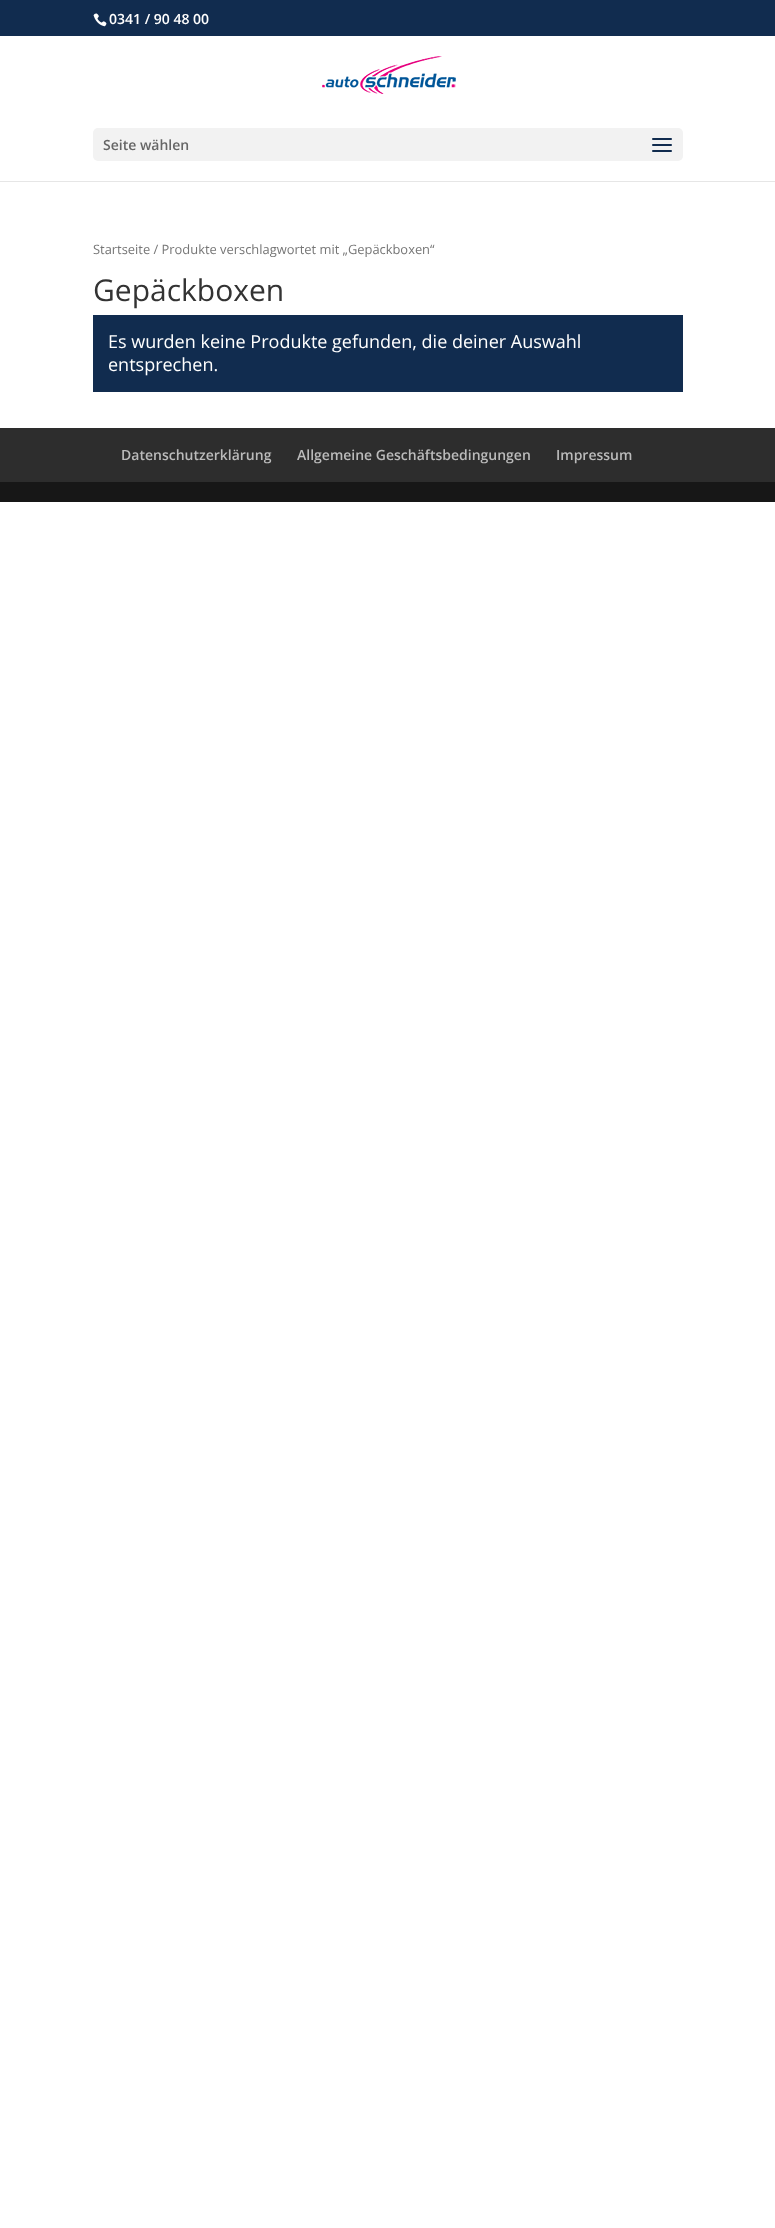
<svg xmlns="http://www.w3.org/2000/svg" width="775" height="2228">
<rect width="100%" height="100%" fill="#fff"/>
<rect width="775" height="36" fill="#112c4f"/>
<image x="93" y="13" width="14" height="14" href="media/1.png"/>
<text x="109" y="24" style="font-family:Open Sans;font-size:14px;font-weight:600;fill:#fff">0341 / 90 48 00</text>
<rect y="181" width="775" height="1" fill="#e6e6e6"/>
<image x="322" y="56" width="134" height="38" href="media/2.png"/>
<rect x="93" y="128" width="590" height="33" rx="5" fill="#f2f2f2"/>
<text x="103" y="150" style="font-family:Open Sans;font-size:14px;font-weight:600;fill:#666">Seite wählen</text>
<image x="652" y="138" width="20" height="14" href="media/3.png"/>
<text x="93" y="254" style="font-family:Open Sans;font-size:12.9px;fill:#767676">Startseite / Produkte verschlagwortet mit „Gepäckboxen“</text>
<text x="93" y="301" style="font-family:Open Sans;font-size:30px;fill:#333">Gepäckboxen</text>
<rect x="93" y="315" width="590" height="77" fill="#112c4f"/>
<text x="108" y="348" style="font-family:Open Sans;font-size:18px;fill:#fff">Es wurden keine Produkte gefunden, die deiner Auswahl</text>
<text x="108" y="371" style="font-family:Open Sans;font-size:18px;fill:#fff">entsprechen.</text>
<rect y="428" width="775" height="54" fill="#2d2d2d"/>
<text x="121" y="460" style="font-family:Open Sans;font-size:14px;font-weight:600;fill:#bbb">Datenschutzerklärung</text>
<text x="297" y="460" style="font-family:Open Sans;font-size:14px;font-weight:600;fill:#bbb">Allgemeine Geschäftsbedingungen</text>
<text x="556" y="460" style="font-family:Open Sans;font-size:14px;font-weight:600;fill:#bbb">Impressum</text>
<rect y="482" width="775" height="20" fill="#171717"/>
</svg>
